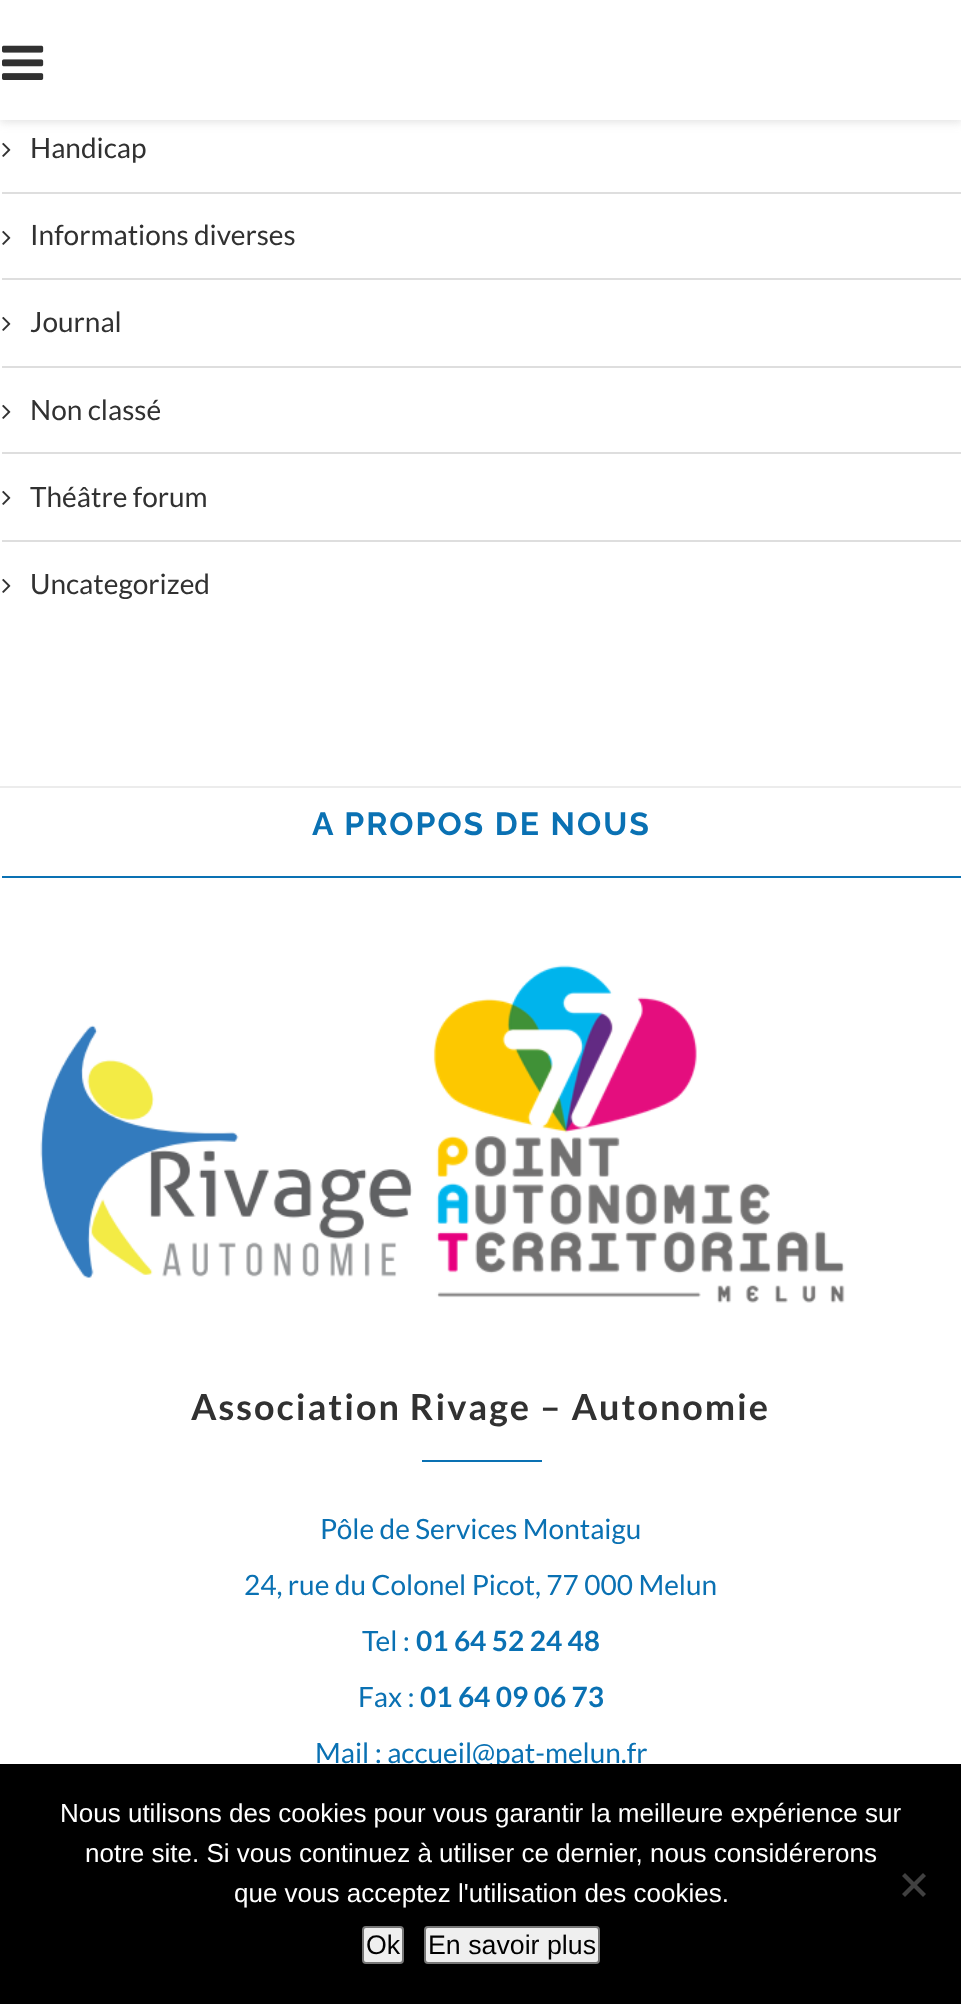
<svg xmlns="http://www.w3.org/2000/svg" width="961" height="2004">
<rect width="100%" height="100%" fill="#fff"/>
<rect y="2" width="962" height="120" fill="#bebebe75" filter="blur(5px)"/>
<rect width="961" height="120" fill="#fff"/>
<image x="2" y="45" width="42" height="35" href="media/1.png"/>
<rect x="2" y="192" width="959" height="2" fill="#dedede"/>
<image x="2" y="142" width="9" height="15" href="media/2.png"/>
<text x="30" y="158" style="font-family:Lato;font-size:28px;fill:#313131">Handicap</text>
<rect x="2" y="278" width="959" height="2" fill="#dedede"/>
<image x="2" y="230" width="9" height="15" href="media/2.png"/>
<text x="30" y="245" style="font-family:Lato;font-size:28px;fill:#313131">Informations diverses</text>
<rect x="2" y="366" width="959" height="2" fill="#dedede"/>
<image x="2" y="316" width="9" height="15" href="media/2.png"/>
<text x="30" y="332" style="font-family:Lato;font-size:28px;fill:#313131">Journal</text>
<rect x="2" y="452" width="959" height="2" fill="#dedede"/>
<image x="2" y="404" width="9" height="15" href="media/2.png"/>
<text x="30" y="420" style="font-family:Lato;font-size:28px;fill:#313131">Non classé</text>
<rect x="2" y="540" width="959" height="2" fill="#dedede"/>
<image x="2" y="490" width="9" height="15" href="media/2.png"/>
<text x="30" y="507" style="font-family:Lato;font-size:28px;fill:#313131">Théâtre forum</text>
<image x="2" y="578" width="9" height="15" href="media/2.png"/>
<text x="30" y="594" style="font-family:Lato;font-size:28px;fill:#313131">Uncategorized</text>
<rect y="786" width="961" height="2" fill="#ececec"/>
<rect x="2" y="876" width="959" height="2" fill="#0a71b3"/>
<text x="312" y="835" style="font-family:Raleway;font-size:32px;font-weight:bold;letter-spacing:2px;fill:#0a71b3">A PROPOS DE NOUS</text>
<image x="40" y="965" width="805" height="338" href="media/3.png"/>
<text x="191" y="1420" style="font-family:Lato;font-size:36px;font-weight:bold;letter-spacing:2px;fill:#313131">Association Rivage – Autonomie</text>
<rect x="422" y="1460" width="120" height="2" fill="#0a71b3"/>
<text x="320" y="1539" style="font-family:Lato;font-size:28px;fill:#0a71b3">Pôle de Services Montaigu</text>
<text x="244" y="1595" style="font-family:Lato;font-size:28px;fill:#0a71b3">24, rue du Colonel Picot, 77 000 Melun</text>
<text x="362" y="1651" style="font-family:Lato;font-size:28px;fill:#0a71b3">Tel :</text>
<text x="416" y="1651" style="font-family:Lato;font-size:28px;font-weight:bold;fill:#0a71b3">01 64 52 24 48</text>
<text x="358" y="1707" style="font-family:Lato;font-size:28px;fill:#0a71b3">Fax :</text>
<text x="420" y="1707" style="font-family:Lato;font-size:28px;font-weight:bold;fill:#0a71b3">01 64 09 06 73</text>
<text x="315" y="1763" style="font-family:Lato;font-size:28px;fill:#0a71b3">Mail : accueil@pat-melun.fr</text>
<rect y="1764" width="961" height="240" fill="#000"/>
<text x="60" y="1822" style="font-family:Liberation Sans;font-size:26px;fill:#fff">Nous utilisons des cookies pour vous garantir la meilleure expérience sur</text>
<text x="85" y="1862" style="font-family:Liberation Sans;font-size:26px;fill:#fff">notre site. Si vous continuez à utiliser ce dernier, nous considérerons</text>
<text x="234" y="1902" style="font-family:Liberation Sans;font-size:26px;fill:#fff">que vous acceptez l'utilisation des cookies.</text>
<path d="M923 1873l3 3l-21 21l-3-3z" fill="#404040"/>
<path d="M902 1876l3-3l21 21l-3 3z" fill="#404040"/>
<rect x="363" y="1927" width="40" height="36" rx="3" fill="#efefef" stroke="#767676" stroke-width="2"/>
<text x="366" y="1954" style="font-family:Liberation Sans;font-size:26.75px;fill:#000">Ok</text>
<rect x="425" y="1927" width="174" height="36" rx="3" fill="#efefef" stroke="#767676" stroke-width="2"/>
<text x="428" y="1954" style="font-family:Liberation Sans;font-size:26.75px;fill:#000">En savoir plus</text>
</svg>
